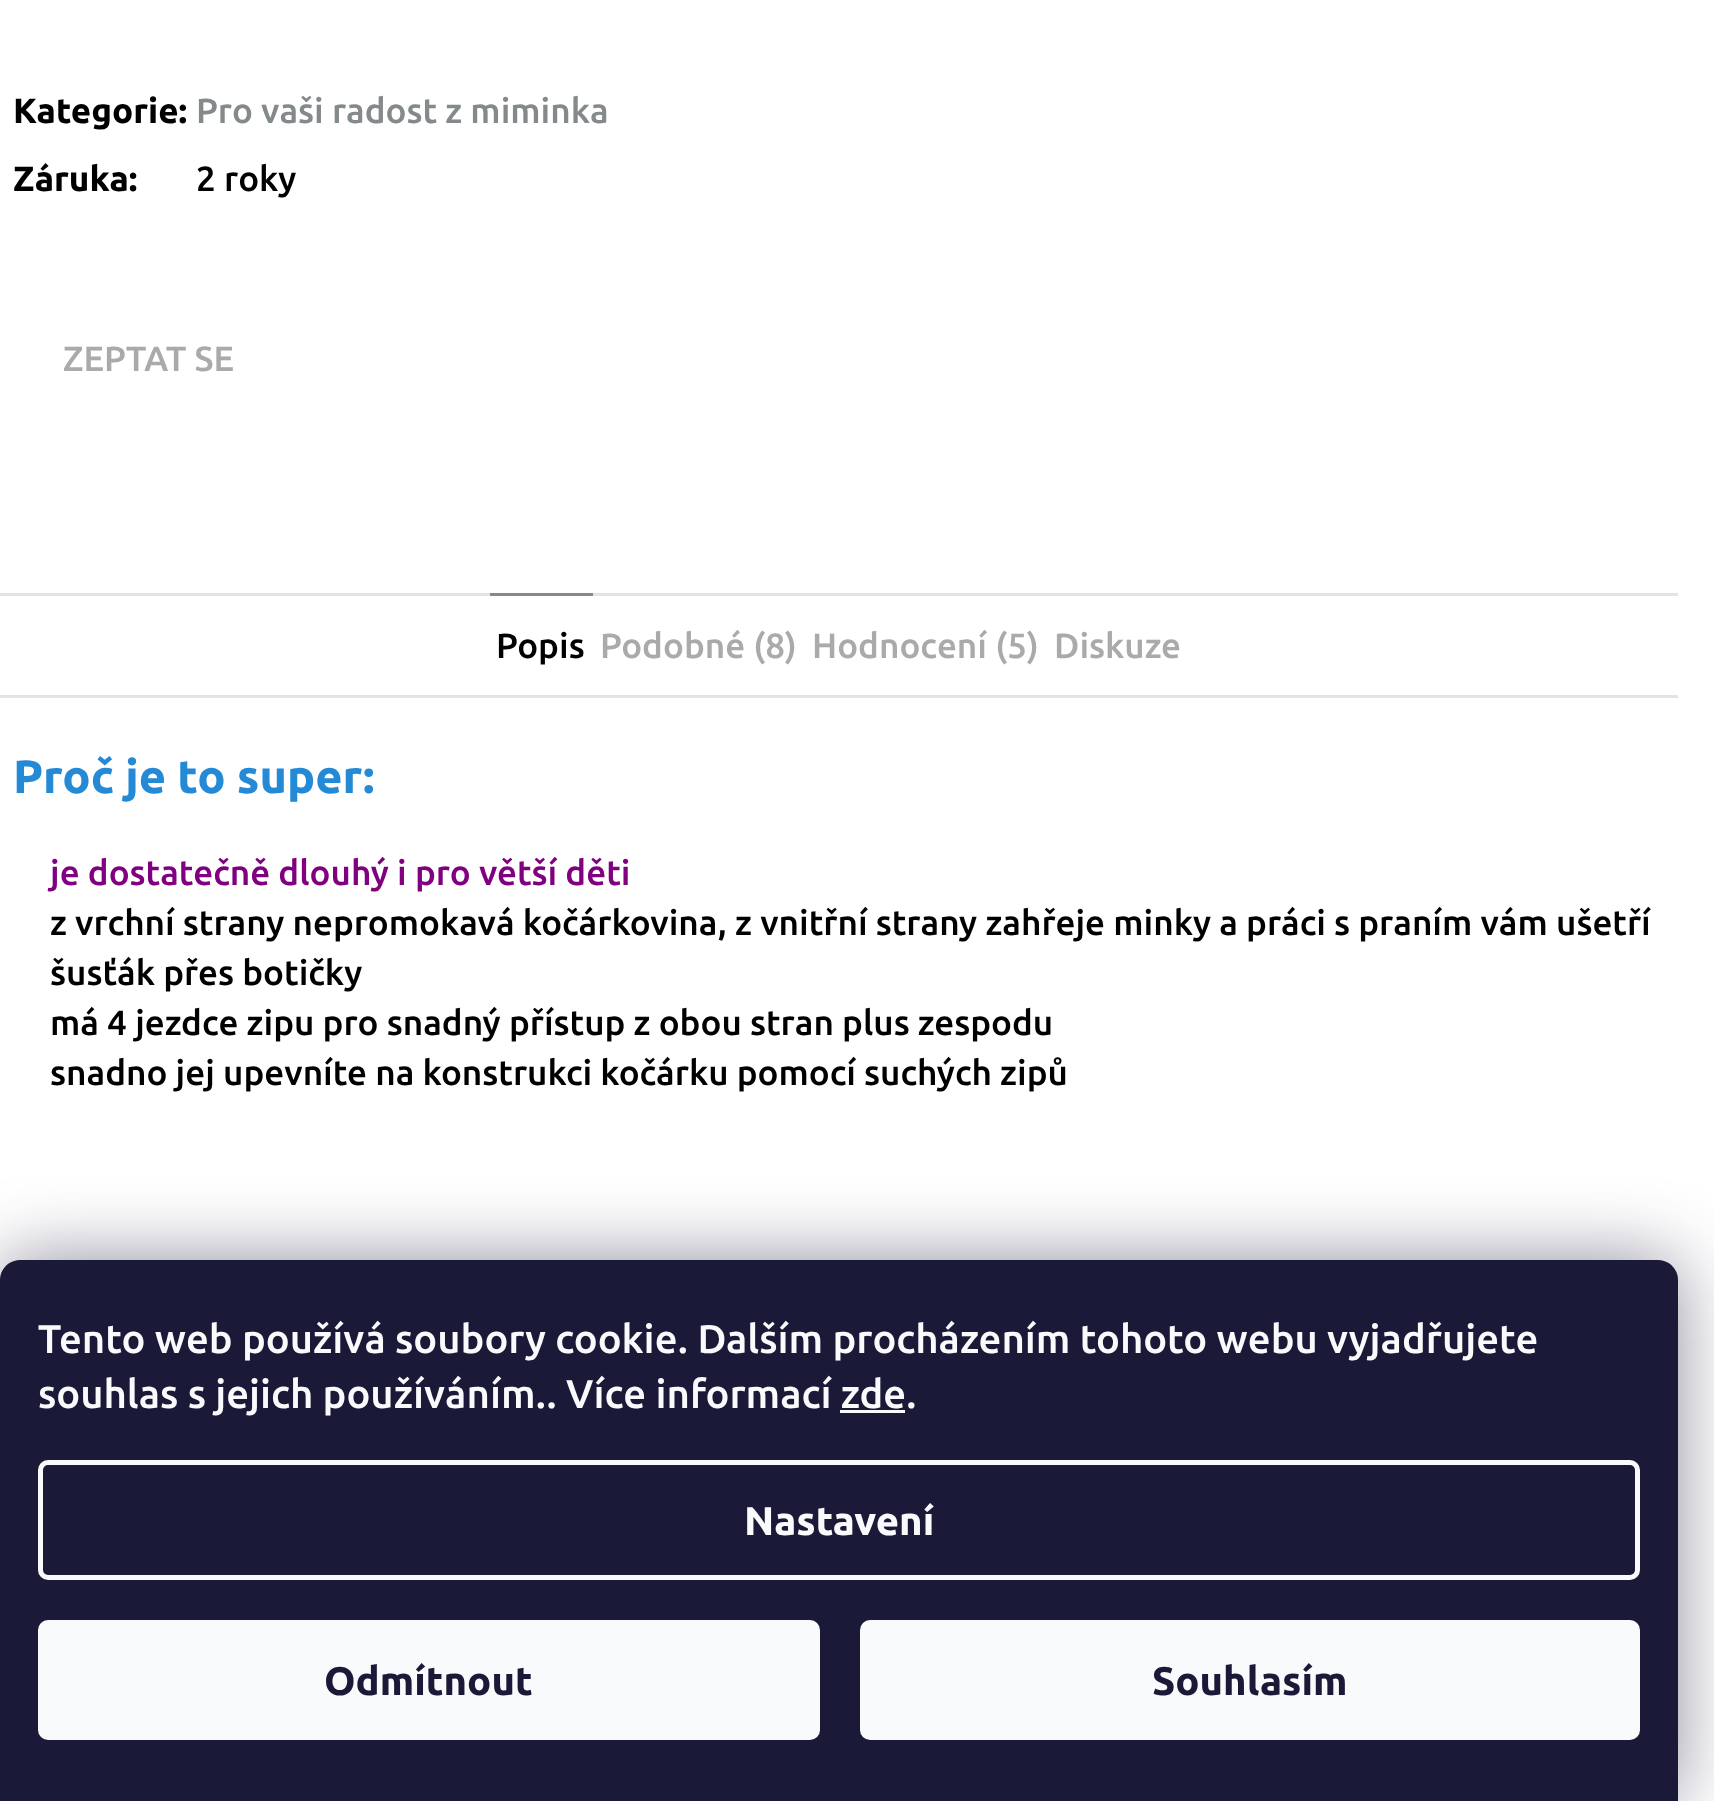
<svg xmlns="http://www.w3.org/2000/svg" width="1714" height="1801">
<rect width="100%" height="100%" fill="#fff"/>
<text x="13" y="123" style="font-family:Ubuntu;font-size:35px;font-weight:bold;fill:#000">Kategorie:</text>
<text x="196" y="123" style="font-family:Ubuntu;font-size:35px;font-weight:500;fill:#84898b">Pro vaši radost z miminka</text>
<text x="13" y="191" style="font-family:Ubuntu;font-size:35px;font-weight:bold;fill:#000">Záruka:</text>
<text x="196" y="191" style="font-family:Ubuntu;font-size:35px;font-weight:500;fill:#000">2 roky</text>
<text x="63" y="371" style="font-family:Ubuntu;font-size:35px;font-weight:500;fill:#aaa">ZEPTAT SE</text>
<rect y="593" width="1678" height="3" fill="#e3e3e3"/>
<rect y="695" width="1678" height="3" fill="#e3e3e3"/>
<rect x="490" y="593" width="103" height="3" fill="#84898b"/>
<text x="496" y="658" style="font-family:Ubuntu;font-size:35px;font-weight:500;fill:#000">Popis</text>
<text x="600" y="658" style="font-family:Ubuntu;font-size:35px;font-weight:500;fill:#aaa">Podobné (8)</text>
<text x="812" y="658" style="font-family:Ubuntu;font-size:35px;font-weight:500;fill:#aaa">Hodnocení (5)</text>
<text x="1054" y="658" style="font-family:Ubuntu;font-size:35px;font-weight:500;fill:#aaa">Diskuze</text>
<text x="13" y="793" style="font-family:Ubuntu;font-size:46.75px;font-weight:bold;fill:#258ad6">Proč je to super:</text>
<text x="50" y="885" style="font-family:Ubuntu;font-size:35px;font-weight:500;fill:#800080">je dostatečně dlouhý i pro větší děti</text>
<text x="50" y="935" style="font-family:Ubuntu;font-size:35px;font-weight:500;fill:#000">z vrchní strany nepromokavá kočárkovina, z vnitřní strany zahřeje minky a práci s praním vám ušetří</text>
<text x="50" y="985" style="font-family:Ubuntu;font-size:35px;font-weight:500;fill:#000">šusťák přes botičky</text>
<text x="50" y="1035" style="font-family:Ubuntu;font-size:35px;font-weight:500;fill:#000">má 4 jezdce zipu pro snadný přístup z obou stran plus zespodu</text>
<text x="50" y="1085" style="font-family:Ubuntu;font-size:35px;font-weight:500;fill:#000">snadno jej upevníte na konstrukci kočárku pomocí suchých zipů</text>
<rect y="1260" width="1678" height="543" rx="20" fill="#1b193980" filter="blur(37.5px)"/>
<path d="M20 1260h1638c11 0 20 9 20 20v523h-1678v-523c0-11 9-20 20-20z" fill="#1a1937"/>
<text x="38" y="1353" style="font-family:Ubuntu;font-size:40px;font-weight:500;fill:#f8fafb">Tento web používá soubory cookie. Dalším procházením tohoto webu vyjadřujete</text>
<text x="38" y="1408" style="font-family:Ubuntu;font-size:40px;font-weight:500;fill:#f8fafb">souhlas s jejich používáním.. Více informací zde.</text>
<rect x="840" y="1410" width="65" height="3" fill="#f8fafb"/>
<rect x="40.5" y="1462.5" width="1597" height="115" rx="7.5" fill="none" stroke="#f8fafb" stroke-width="5"/>
<text x="744" y="1535" style="font-family:Ubuntu;font-size:40px;font-weight:bold;fill:#f8fafb">Nastavení</text>
<rect x="38" y="1620" width="782" height="120" rx="10" fill="#f8fafb"/>
<text x="324" y="1695" style="font-family:Ubuntu;font-size:40px;font-weight:bold;fill:#1a1937">Odmítnout</text>
<rect x="860" y="1620" width="780" height="120" rx="10" fill="#f8fafb"/>
<text x="1152" y="1695" style="font-family:Ubuntu;font-size:40px;font-weight:bold;fill:#1a1937">Souhlasím</text>
</svg>
